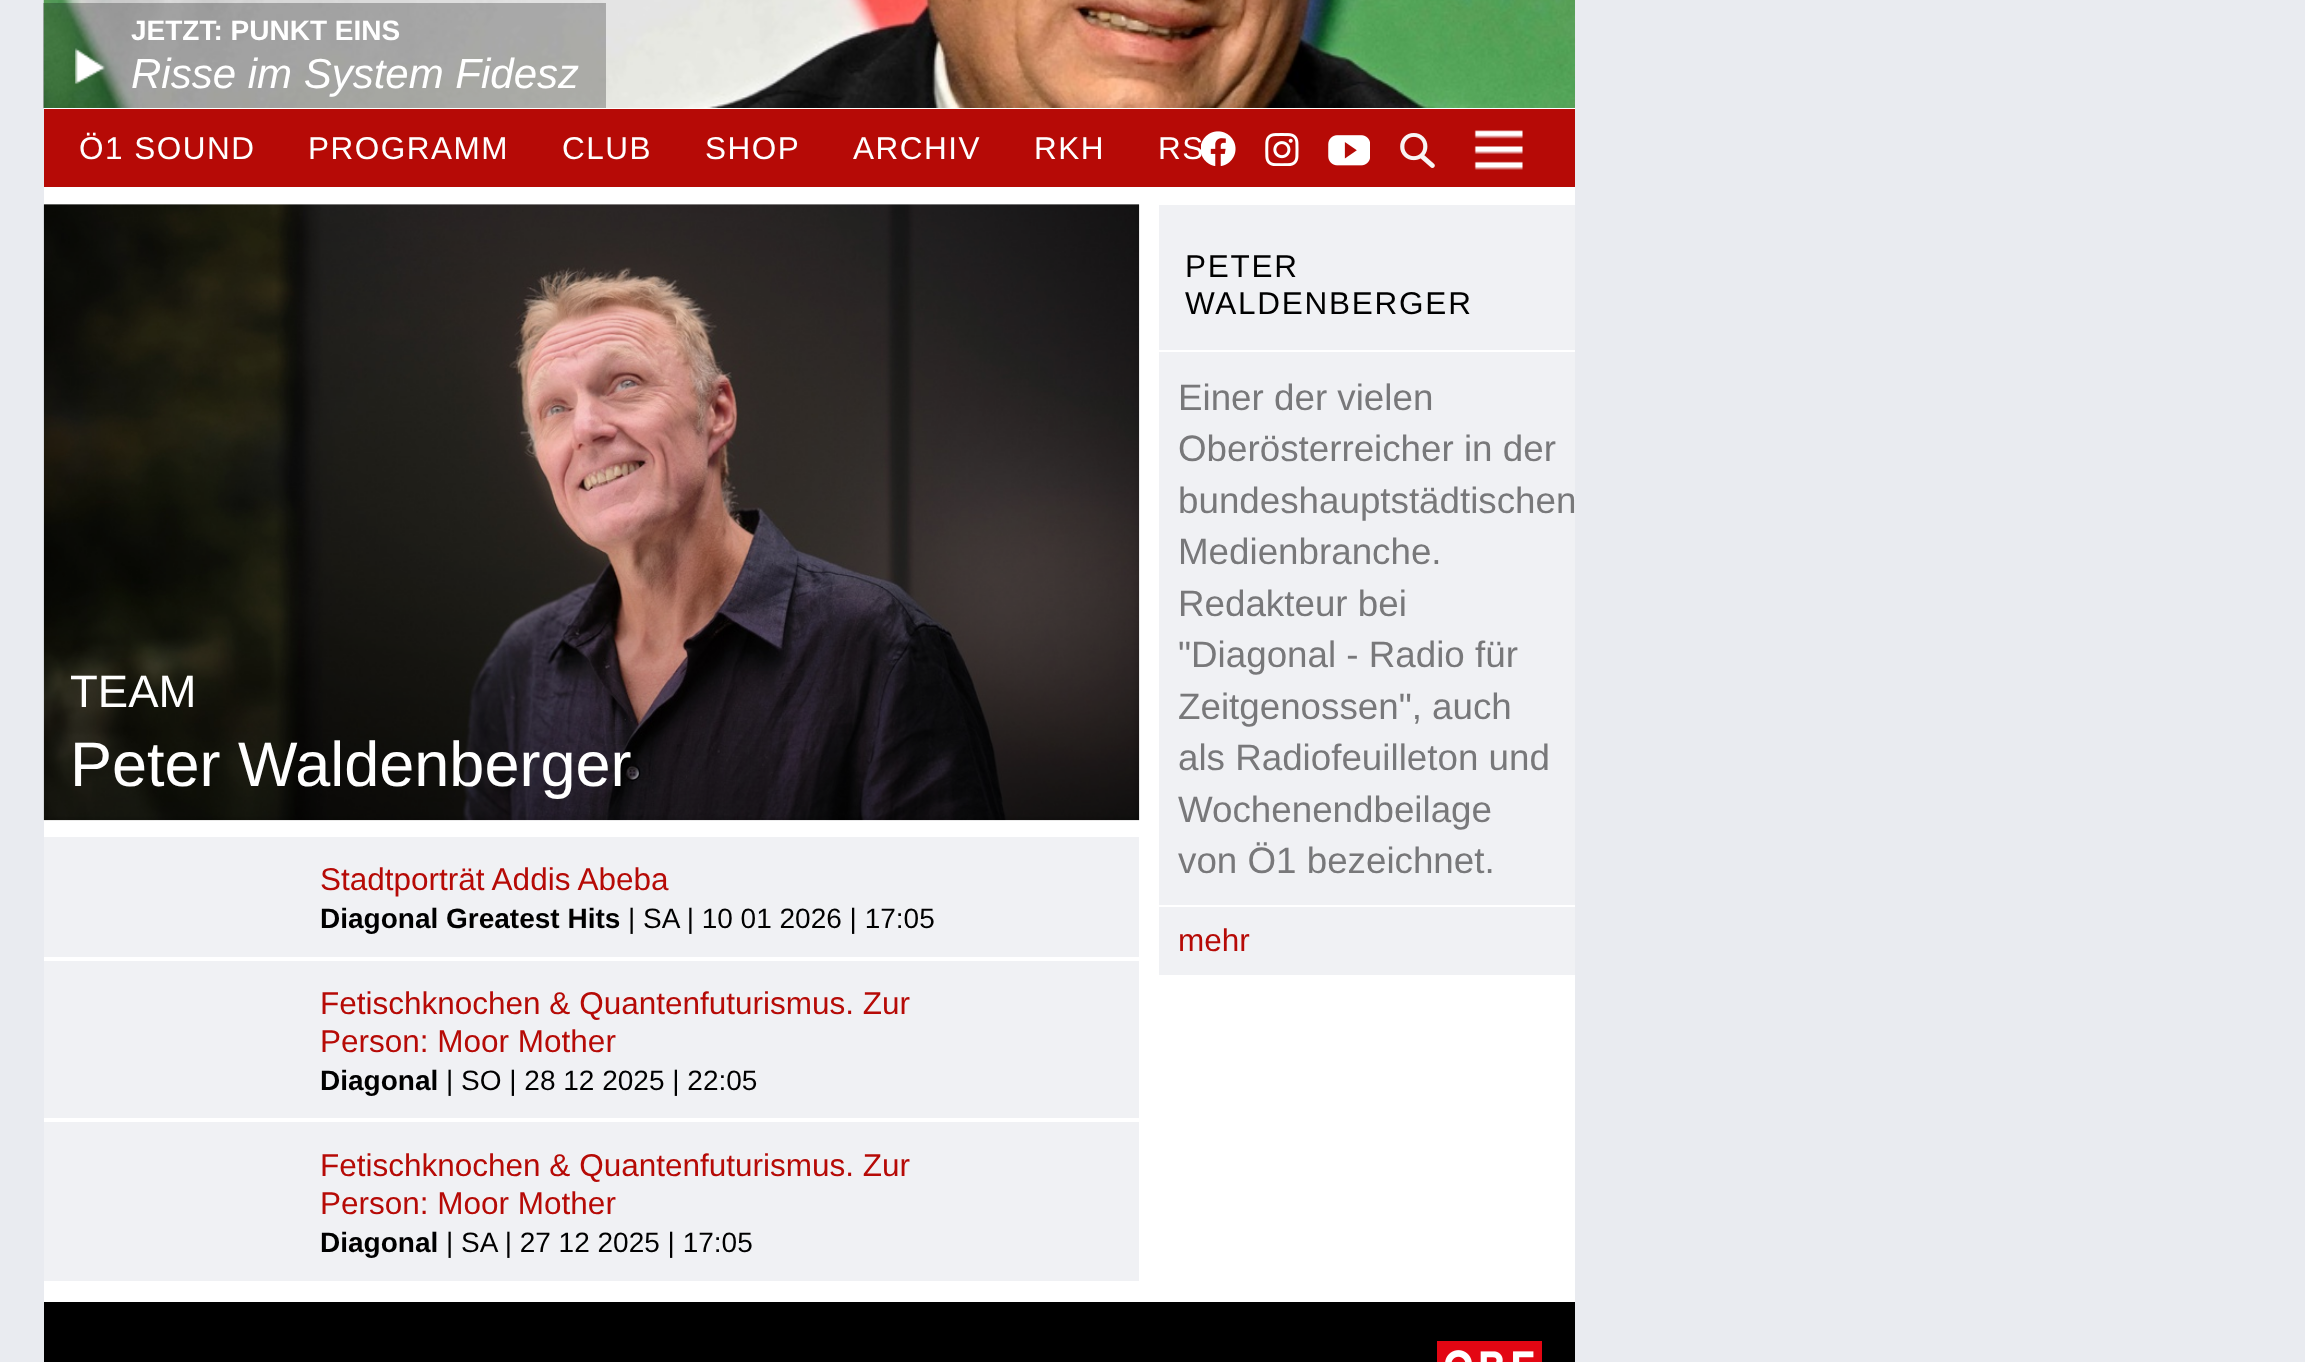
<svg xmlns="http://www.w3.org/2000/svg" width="2305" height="1362">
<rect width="100%" height="100%" fill="#e9ebf0"/>
<rect x="44" y="108" width="1531" height="1194" fill="#fff"/>
<image x="43" y="0" width="1532" height="108" href="media/1.png"/>
<rect x="43" y="3" width="563" height="105" fill="#00000040"/>
<text x="131" y="40" style="font-family:Liberation Sans;font-size:28px;font-weight:bold;fill:#fff">JETZT: PUNKT EINS</text>
<image x="75" y="48" width="30" height="36" href="media/2.png"/>
<text x="131" y="88" style="font-family:Liberation Sans;font-size:42px;font-style:italic;fill:#fff">Risse im System Fidesz</text>
<rect x="44" y="109" width="1531" height="78" fill="#b60a06"/>
<text x="79" y="159" style="font-family:Liberation Sans;font-size:31.5px;letter-spacing:1.5px;fill:#fff">Ö1 SOUND</text>
<text x="308" y="159" style="font-family:Liberation Sans;font-size:31.5px;letter-spacing:1.5px;fill:#fff">PROGRAMM</text>
<text x="562" y="159" style="font-family:Liberation Sans;font-size:31.5px;letter-spacing:1.5px;fill:#fff">CLUB</text>
<text x="705" y="159" style="font-family:Liberation Sans;font-size:31.5px;letter-spacing:1.5px;fill:#fff">SHOP</text>
<text x="853" y="159" style="font-family:Liberation Sans;font-size:31.5px;letter-spacing:1.5px;fill:#fff">ARCHIV</text>
<text x="1034" y="159" style="font-family:Liberation Sans;font-size:31.5px;letter-spacing:1.5px;fill:#fff">RKH</text>
<text x="1158" y="159" style="font-family:Liberation Sans;font-size:31.5px;letter-spacing:1.5px;fill:#fff">RS</text>
<image x="1201" y="131" width="35" height="35" href="media/3.png"/>
<image x="1265" y="133" width="34" height="33" href="media/4.png"/>
<image x="1328" y="135" width="42" height="31" href="media/5.png"/>
<image x="1400" y="133" width="35" height="35" href="media/6.png"/>
<image x="1474" y="130" width="49" height="40" href="media/7.png"/>
<image x="43" y="204" width="1097" height="617" href="media/8.png"/>
<image x="43" y="204" width="1097" height="617" href="media/9.png"/>
<text x="70" y="707" style="font-family:Liberation Sans;font-size:45.5px;fill:#fff">TEAM</text>
<text x="70" y="786" style="font-family:Liberation Sans;font-size:63px;fill:#fff">Peter Waldenberger</text>
<rect x="1159" y="205" width="416" height="145" fill="#f0f1f4"/>
<text x="1185" y="277" style="font-family:Liberation Sans;font-size:31.5px;letter-spacing:1.75px;fill:#000">PETER</text>
<text x="1185" y="314" style="font-family:Liberation Sans;font-size:31.5px;letter-spacing:1.75px;fill:#000">WALDENBERGER</text>
<rect x="1159" y="352" width="416" height="623" fill="#f0f1f4"/>
<text x="1178" y="410" style="font-family:Liberation Sans;font-size:36.75px;fill:#78787a">Einer der vielen</text>
<text x="1178" y="461" style="font-family:Liberation Sans;font-size:36.75px;fill:#78787a">Oberösterreicher in der</text>
<text x="1178" y="513" style="font-family:Liberation Sans;font-size:36.75px;fill:#78787a">bundeshauptstädtischen</text>
<text x="1178" y="564" style="font-family:Liberation Sans;font-size:36.75px;fill:#78787a">Medienbranche.</text>
<text x="1178" y="616" style="font-family:Liberation Sans;font-size:36.75px;fill:#78787a">Redakteur bei</text>
<text x="1178" y="667" style="font-family:Liberation Sans;font-size:36.75px;fill:#78787a">"Diagonal - Radio für</text>
<text x="1178" y="719" style="font-family:Liberation Sans;font-size:36.75px;fill:#78787a">Zeitgenossen", auch</text>
<text x="1178" y="770" style="font-family:Liberation Sans;font-size:36.75px;fill:#78787a">als Radiofeuilleton und</text>
<text x="1178" y="822" style="font-family:Liberation Sans;font-size:36.75px;fill:#78787a">Wochenendbeilage</text>
<text x="1178" y="873" style="font-family:Liberation Sans;font-size:36.75px;fill:#78787a">von Ö1 bezeichnet.</text>
<rect x="1159" y="905" width="416" height="2" fill="#fff"/>
<text x="1178" y="951" style="font-family:Liberation Sans;font-size:31.5px;fill:#b60a06">mehr</text>
<rect x="44" y="837" width="1095" height="120" fill="#f0f1f4"/>
<text x="320" y="890" style="font-family:Liberation Sans;font-size:31.5px;fill:#b60a06">Stadtporträt Addis Abeba</text>
<text x="320" y="928" style="font-family:Liberation Sans;font-size:28px;font-weight:bold;fill:#000">Diagonal Greatest Hits</text>
<text x="628" y="928" style="font-family:Liberation Sans;font-size:28px;fill:#000">| SA | 10 01 2026 | 17:05</text>
<rect x="44" y="961" width="1095" height="157" fill="#f0f1f4"/>
<text x="320" y="1014" style="font-family:Liberation Sans;font-size:31.5px;fill:#b60a06">Fetischknochen &amp; Quantenfuturismus. Zur</text>
<text x="320" y="1052" style="font-family:Liberation Sans;font-size:31.5px;fill:#b60a06">Person: Moor Mother</text>
<text x="320" y="1090" style="font-family:Liberation Sans;font-size:28px;font-weight:bold;fill:#000">Diagonal</text>
<text x="446" y="1090" style="font-family:Liberation Sans;font-size:28px;fill:#000">| SO | 28 12 2025 | 22:05</text>
<rect x="44" y="1122" width="1095" height="159" fill="#f0f1f4"/>
<text x="320" y="1176" style="font-family:Liberation Sans;font-size:31.5px;fill:#b60a06">Fetischknochen &amp; Quantenfuturismus. Zur</text>
<text x="320" y="1214" style="font-family:Liberation Sans;font-size:31.5px;fill:#b60a06">Person: Moor Mother</text>
<text x="320" y="1252" style="font-family:Liberation Sans;font-size:28px;font-weight:bold;fill:#000">Diagonal</text>
<text x="446" y="1252" style="font-family:Liberation Sans;font-size:28px;fill:#000">| SA | 27 12 2025 | 17:05</text>
<rect x="44" y="1302" width="1531" height="60" fill="#000"/>
<image x="1437" y="1341" width="105" height="21" href="media/10.png"/>
</svg>
